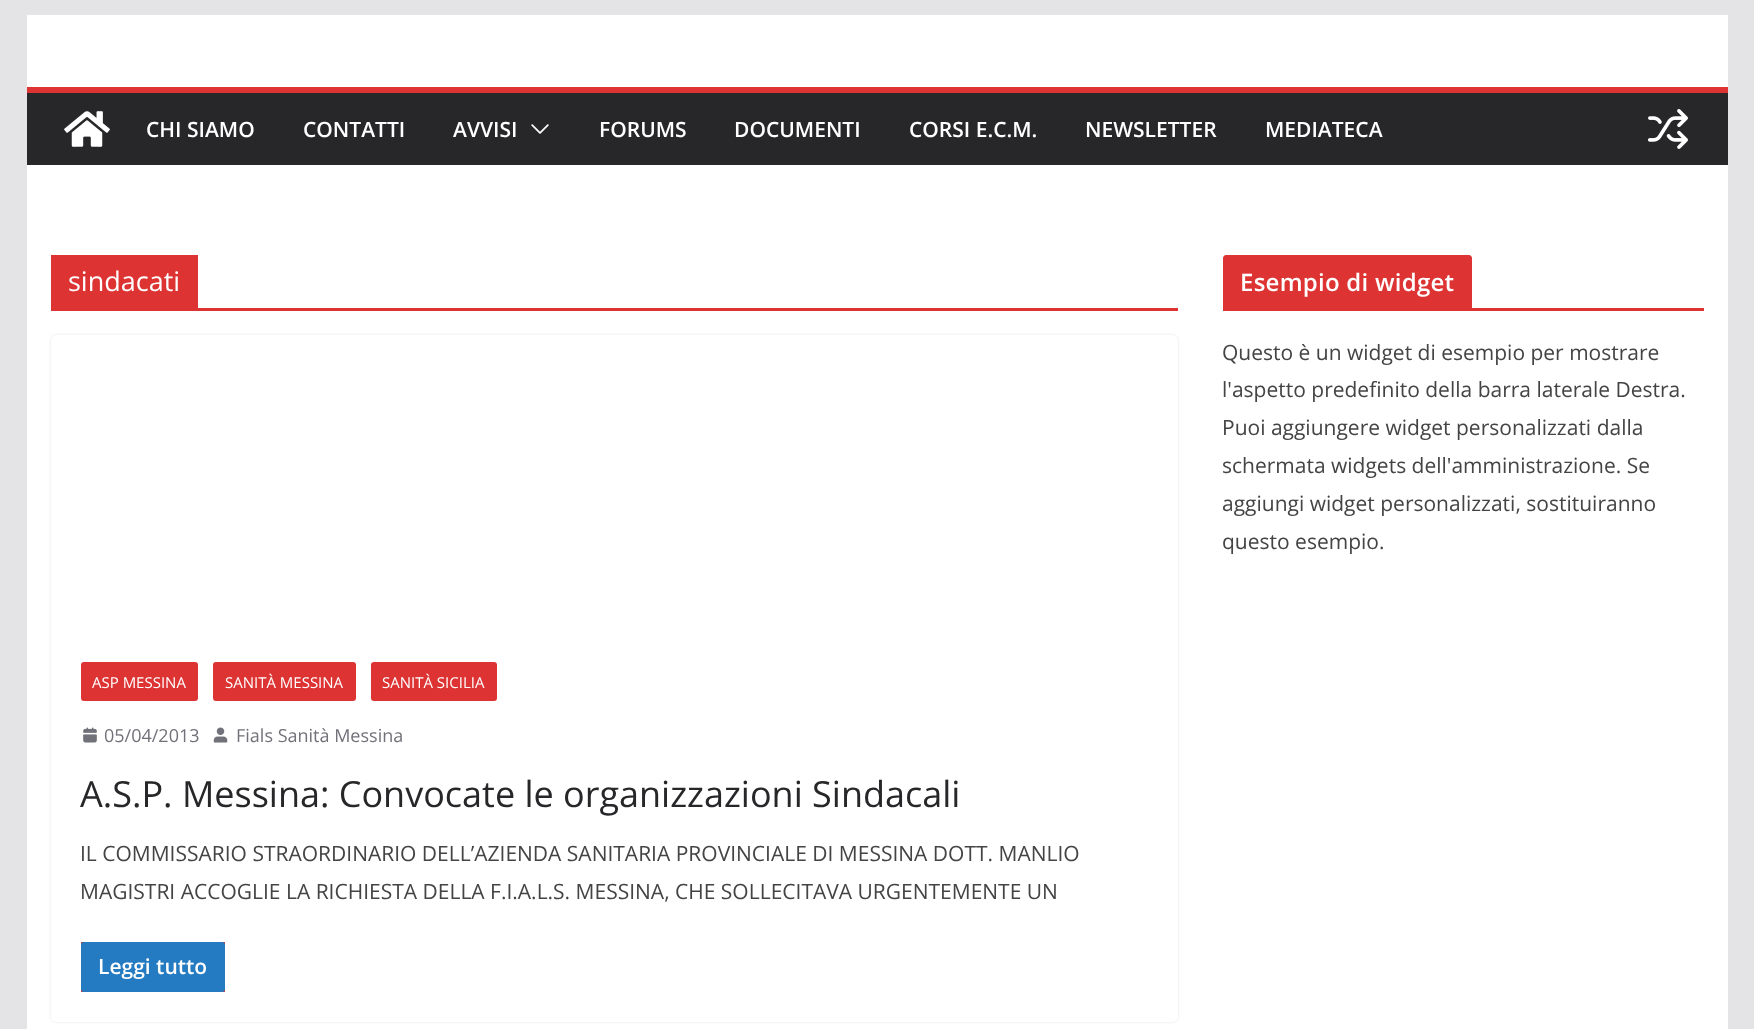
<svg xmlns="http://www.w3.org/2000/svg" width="1754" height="1029">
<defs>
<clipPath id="clip1"><path d="M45 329h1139v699h-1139zm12 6h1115c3.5 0 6 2.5 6 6v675c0 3.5-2.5 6-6 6h-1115c-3.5 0-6-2.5-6-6v-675c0-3.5 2.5-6 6-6z" clip-rule="evenodd"/></clipPath>
</defs>
<rect width="100%" height="100%" fill="#e4e4e7"/>
<rect x="27" y="15" width="1701" height="72" fill="#fff"/>
<rect x="27" y="93" width="1701" height="72" fill="#27272a"/>
<rect x="27" y="87" width="1701" height="6" fill="#d33"/>
<image x="64" y="111" width="46" height="36" href="media/1.png"/>
<text x="146" y="137" style="font-family:Open Sans;font-size:21px;font-weight:600;fill:#fff">CHI SIAMO</text>
<text x="303" y="137" style="font-family:Open Sans;font-size:21px;font-weight:600;fill:#fff">CONTATTI</text>
<text x="453" y="137" style="font-family:Open Sans;font-size:21px;font-weight:600;fill:#fff">AVVISI</text>
<image x="531" y="124" width="18" height="10" href="media/2.png"/>
<text x="599" y="137" style="font-family:Open Sans;font-size:21px;font-weight:600;fill:#fff">FORUMS</text>
<text x="734" y="137" style="font-family:Open Sans;font-size:21px;font-weight:600;fill:#fff">DOCUMENTI</text>
<text x="909" y="137" style="font-family:Open Sans;font-size:21px;font-weight:600;fill:#fff">CORSI E.C.M.</text>
<text x="1085" y="137" style="font-family:Open Sans;font-size:21px;font-weight:600;fill:#fff">NEWSLETTER</text>
<text x="1265" y="137" style="font-family:Open Sans;font-size:21px;font-weight:600;fill:#fff">MEDIATECA</text>
<image x="1648" y="109" width="40" height="40" href="media/3.png"/>
<rect x="27" y="165" width="1701" height="864" fill="#fff"/>
<rect x="51" y="308" width="1127" height="3" fill="#d33"/>
<rect x="51" y="255" width="147" height="53" fill="#d33"/>
<text x="68" y="291" style="font-family:Open Sans;font-size:27px;fill:#fff">sindacati</text>
<g clip-path="url(#clip1)">
<rect x="51" y="335" width="1127" height="687" rx="6" fill="#e4e4e7" filter="blur(1.5px)"/>
</g>
<rect x="81" y="662" width="117" height="39" rx="3" fill="#d33"/>
<text x="92" y="688" style="font-family:Open Sans;font-size:15px;fill:#fff">ASP MESSINA</text>
<rect x="213" y="662" width="143" height="39" rx="3" fill="#d33"/>
<text x="225" y="688" style="font-family:Open Sans;font-size:15px;fill:#fff">SANITÀ MESSINA</text>
<rect x="371" y="662" width="126" height="39" rx="3" fill="#d33"/>
<text x="382" y="688" style="font-family:Open Sans;font-size:15px;fill:#fff">SANITÀ SICILIA</text>
<image x="83" y="727" width="14" height="16" href="media/4.png"/>
<text x="104" y="742" style="font-family:Open Sans;font-size:18px;fill:#71717a">05/04/2013</text>
<image x="213" y="727" width="15" height="16" href="media/5.png"/>
<text x="236" y="742" style="font-family:Open Sans;font-size:18px;fill:#71717a">Fials Sanità Messina</text>
<text x="80" y="807" style="font-family:Open Sans;font-size:36px;fill:#27272a">A.S.P. Messina: Convocate le organizzazioni Sindacali</text>
<text x="80" y="861" style="font-family:Open Sans;font-size:21px;fill:#444">IL COMMISSARIO STRAORDINARIO DELL’AZIENDA SANITARIA PROVINCIALE DI MESSINA DOTT. MANLIO</text>
<text x="80" y="899" style="font-family:Open Sans;font-size:21px;fill:#444">MAGISTRI ACCOGLIE LA RICHIESTA DELLA F.I.A.L.S. MESSINA, CHE SOLLECITAVA URGENTEMENTE UN</text>
<rect x="81" y="942" width="144" height="50" fill="#d33"/>
<rect x="81" y="942" width="144" height="50" rx="3" fill="#257bc1"/>
<text x="98" y="974" style="font-family:Open Sans;font-size:21px;font-weight:600;fill:#fff">Leggi tutto</text>
<rect x="1223" y="308" width="481" height="3" fill="#d33"/>
<path d="M1226 255h243c1.5 0 3 1.5 3 3v50h-249v-50c0-1.5 1.5-3 3-3z" fill="#d33"/>
<text x="1240" y="291" style="font-family:Open Sans;font-size:24px;font-weight:600;letter-spacing:0.25px;fill:#fff">Esempio di widget</text>
<text x="1222" y="360" style="font-family:Open Sans;font-size:21px;fill:#444">Questo è un widget di esempio per mostrare</text>
<text x="1222" y="397" style="font-family:Open Sans;font-size:21px;fill:#444">l'aspetto predefinito della barra laterale Destra.</text>
<text x="1222" y="435" style="font-family:Open Sans;font-size:21px;fill:#444">Puoi aggiungere widget personalizzati dalla</text>
<text x="1222" y="473" style="font-family:Open Sans;font-size:21px;fill:#444">schermata widgets dell'amministrazione. Se</text>
<text x="1222" y="511" style="font-family:Open Sans;font-size:21px;fill:#444">aggiungi widget personalizzati, sostituiranno</text>
<text x="1222" y="549" style="font-family:Open Sans;font-size:21px;fill:#444">questo esempio.</text>
</svg>
